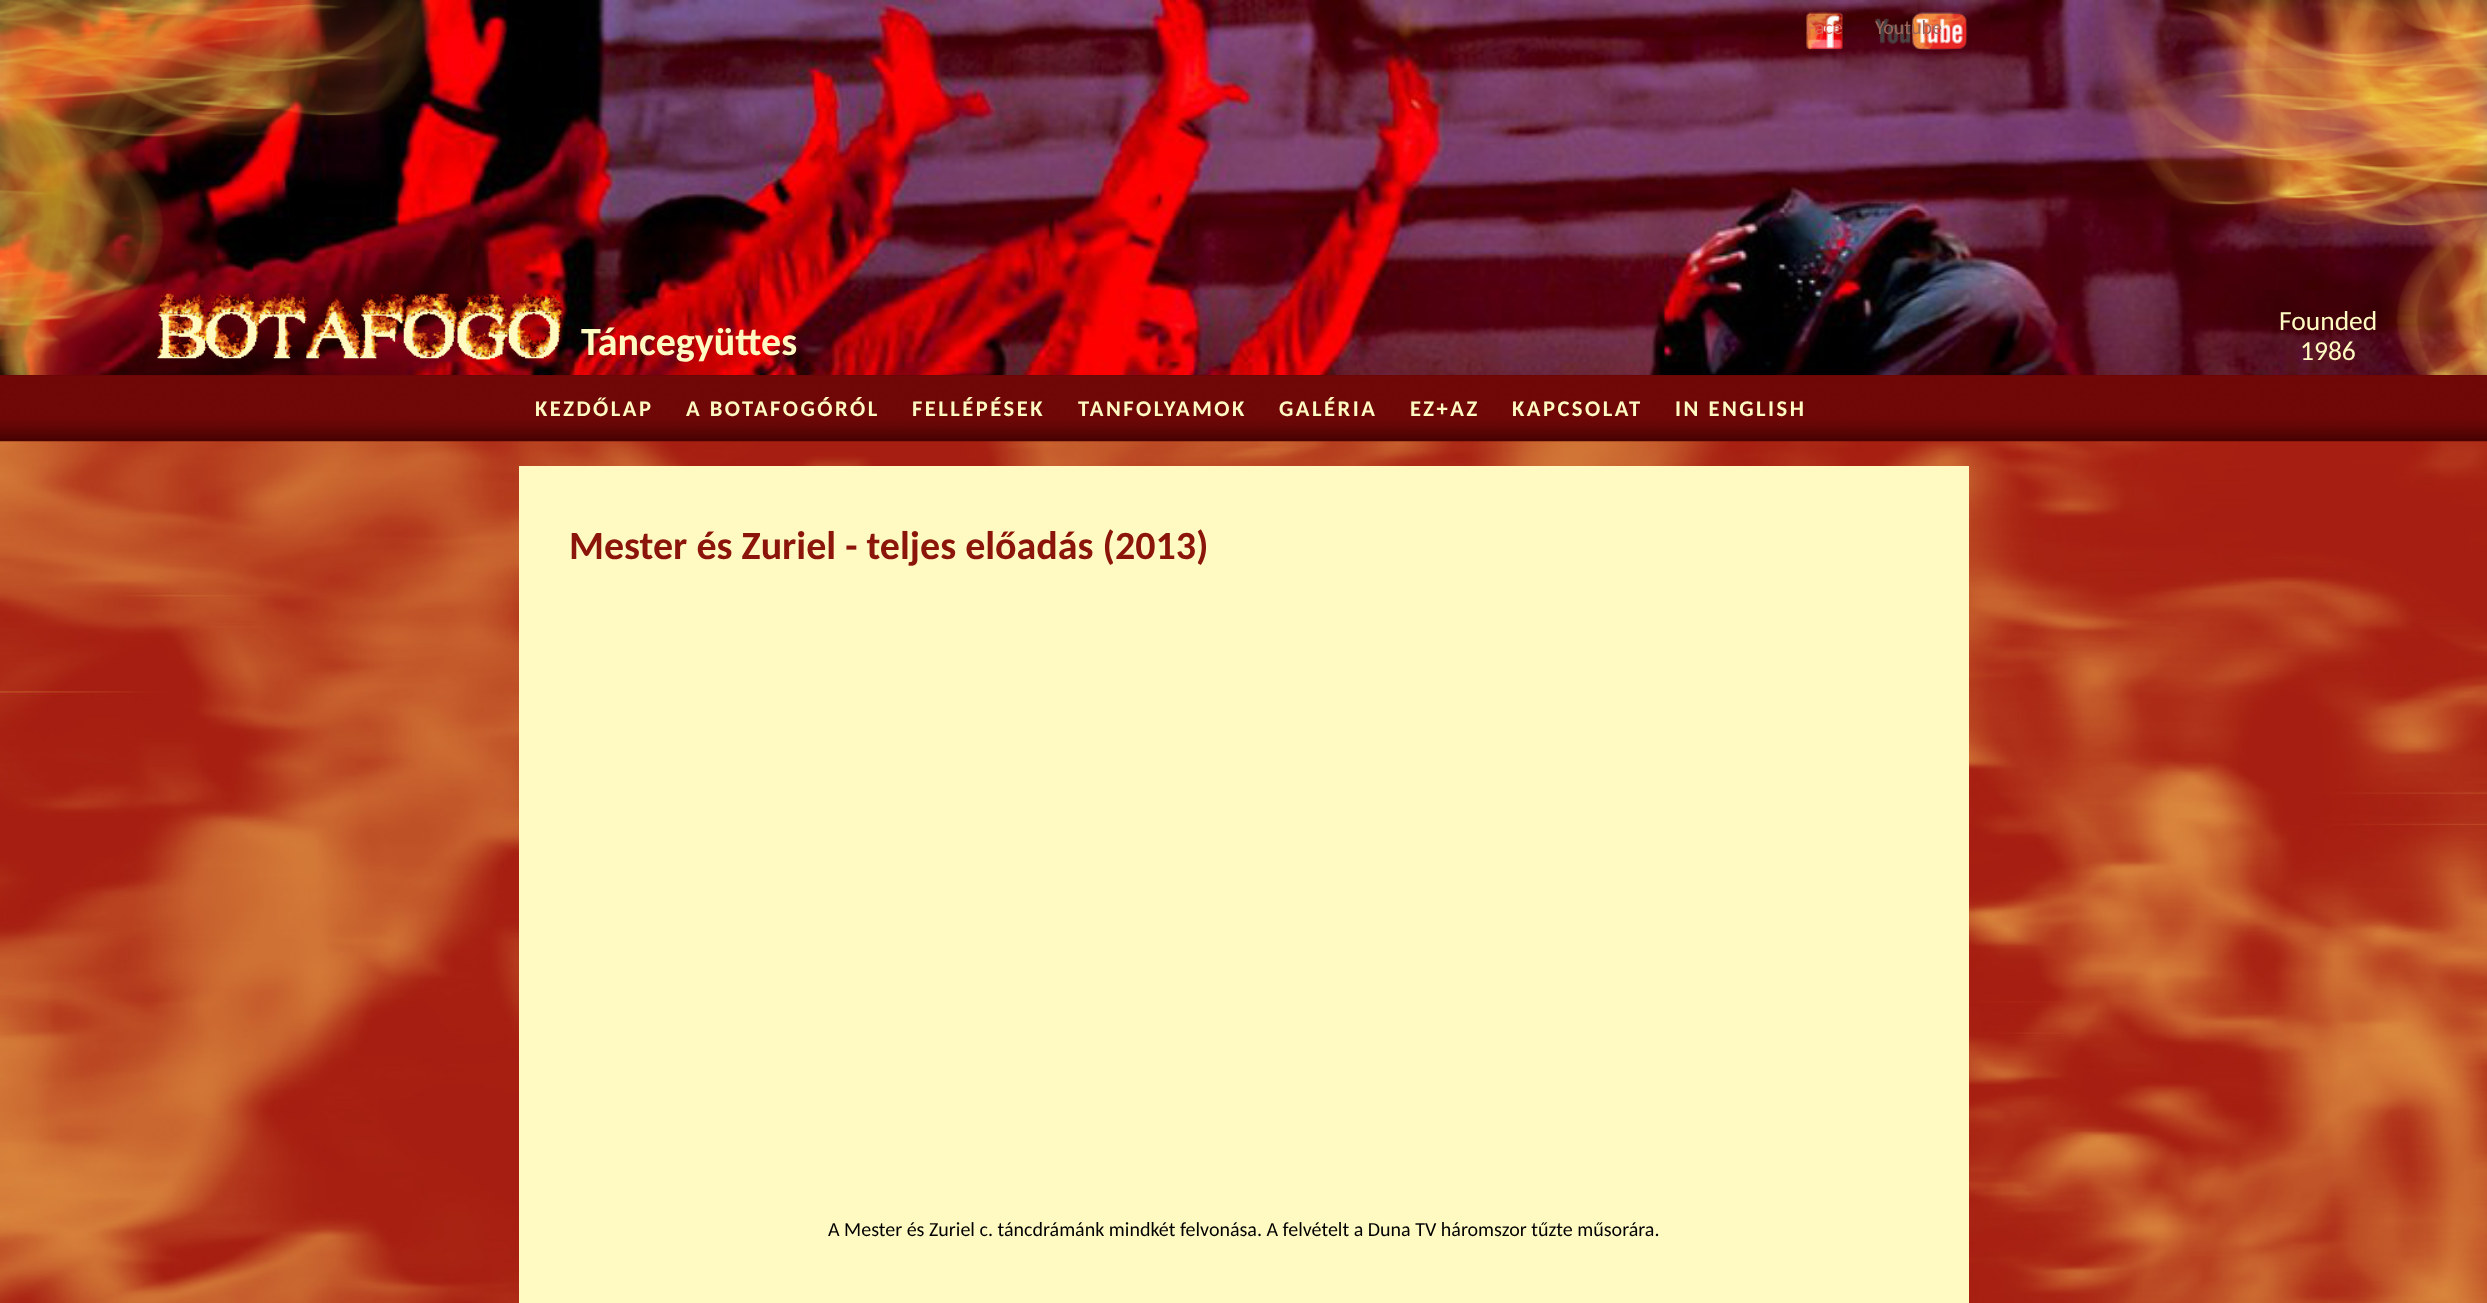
<svg xmlns="http://www.w3.org/2000/svg" width="2487" height="1303">
<rect width="100%" height="100%" fill="#fff"/>
<image x="0" y="441" width="2487" height="862" href="media/1.png"/>
<image x="0" y="0" width="2487" height="375" href="media/2.png"/>
<image x="157" y="293" width="407" height="67" href="media/7.png"/>
<image x="0" y="0" width="441" height="375" href="media/3.png"/>
<text x="2279" y="330" style="font-family:Carlito;font-size:27.5px;fill:#fffac1">Founded</text>
<text x="2300" y="360" style="font-family:Carlito;font-size:27.5px;fill:#fffac1">1986</text>
<image x="2104" y="0" width="383" height="375" href="media/4.png"/>
<image x="1806" y="12" width="37" height="38" href="media/5.png"/>
<text x="1806" y="34" style="font-family:Carlito;font-size:20px;fill:#dc6857">Face</text>
<image x="1875" y="12" width="93" height="38" href="media/6.png"/>
<text x="1875" y="34" style="font-family:Carlito;font-size:20px;fill:#9b6559">Youtube</text>
<text x="581" y="355" style="font-family:Carlito;font-size:40px;font-weight:bold;fill:#fffac1">Táncegyüttes</text>
<image x="0" y="375" width="2487" height="67" href="media/8.png"/>
<text x="535" y="416" style="font-family:Carlito;font-size:22.5px;font-weight:bold;letter-spacing:2.5px;fill:#fffac1">KEZDŐLAP</text>
<text x="686" y="416" style="font-family:Carlito;font-size:22.5px;font-weight:bold;letter-spacing:2.5px;fill:#fffac1">A BOTAFOGÓRÓL</text>
<text x="912" y="416" style="font-family:Carlito;font-size:22.5px;font-weight:bold;letter-spacing:2.5px;fill:#fffac1">FELLÉPÉSEK</text>
<text x="1078" y="416" style="font-family:Carlito;font-size:22.5px;font-weight:bold;letter-spacing:2.5px;fill:#fffac1">TANFOLYAMOK</text>
<text x="1279" y="416" style="font-family:Carlito;font-size:22.5px;font-weight:bold;letter-spacing:2.5px;fill:#fffac1">GALÉRIA</text>
<text x="1410" y="416" style="font-family:Carlito;font-size:22.5px;font-weight:bold;letter-spacing:2.5px;fill:#fffac1">EZ+AZ</text>
<text x="1512" y="416" style="font-family:Carlito;font-size:22.5px;font-weight:bold;letter-spacing:2.5px;fill:#fffac1">KAPCSOLAT</text>
<text x="1675" y="416" style="font-family:Carlito;font-size:22.5px;font-weight:bold;letter-spacing:2.5px;fill:#fffac1">IN ENGLISH</text>
<rect x="519" y="466" width="1450" height="837" fill="#fffac1"/>
<text x="569" y="559" style="font-family:Carlito;font-size:40px;font-weight:bold;fill:#8b150a">Mester és Zuriel - teljes előadás (2013)</text>
<text x="828" y="1236" style="font-family:Carlito;font-size:20px;fill:#000">A Mester és Zuriel c. táncdrámánk mindkét felvonása. A felvételt a Duna TV háromszor tűzte műsorára.</text>
</svg>
